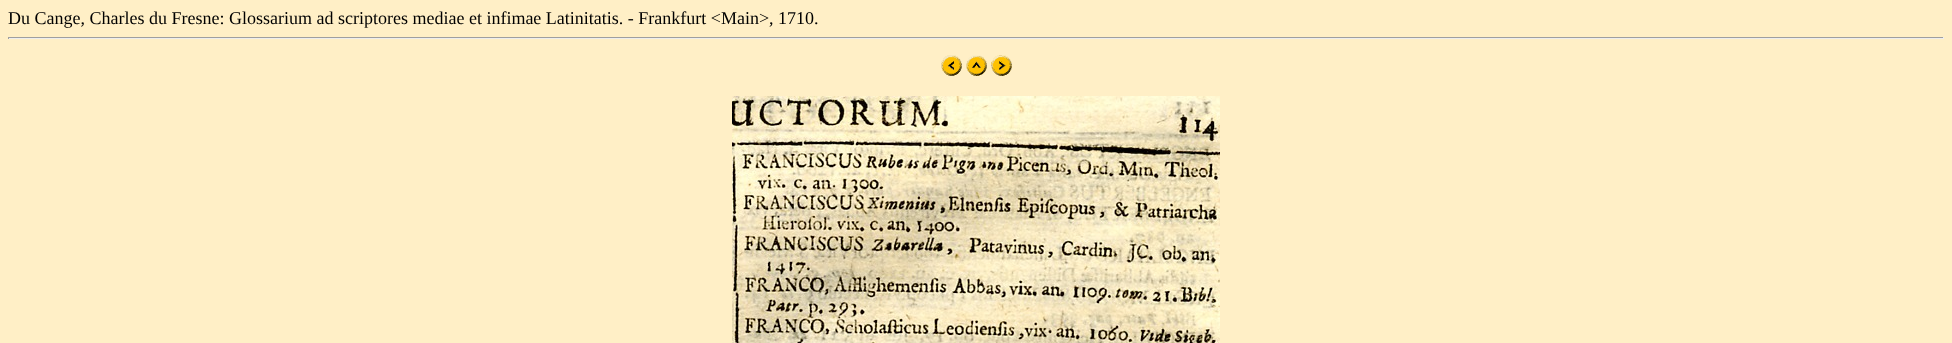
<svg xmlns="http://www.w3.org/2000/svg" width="1952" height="343">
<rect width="100%" height="100%" fill="#ffefc6"/>
<text x="8" y="24" style="font-family:Liberation Serif;font-size:18px;fill:#000">Du Cange, Charles du Fresne: Glossarium ad scriptores mediae et infimae Latinitatis. - Frankfurt &lt;Main&gt;, 1710.</text>
<rect x="8" y="37" width="1936" height="1" fill="#9f9f9f"/>
<rect x="1943" y="37" width="1" height="2" fill="#eee"/>
<rect x="8" y="38" width="1936" height="1" fill="#eee"/>
<rect x="8" y="37" width="1" height="2" fill="#9f9f9f"/>
<image x="941" y="55" width="21" height="21" href="media/1.png"/>
<image x="966" y="55" width="21" height="21" href="media/2.png"/>
<image x="991" y="55" width="21" height="21" href="media/3.png"/>
<image x="732" y="96" width="488" height="247" href="media/4.png"/>
</svg>
